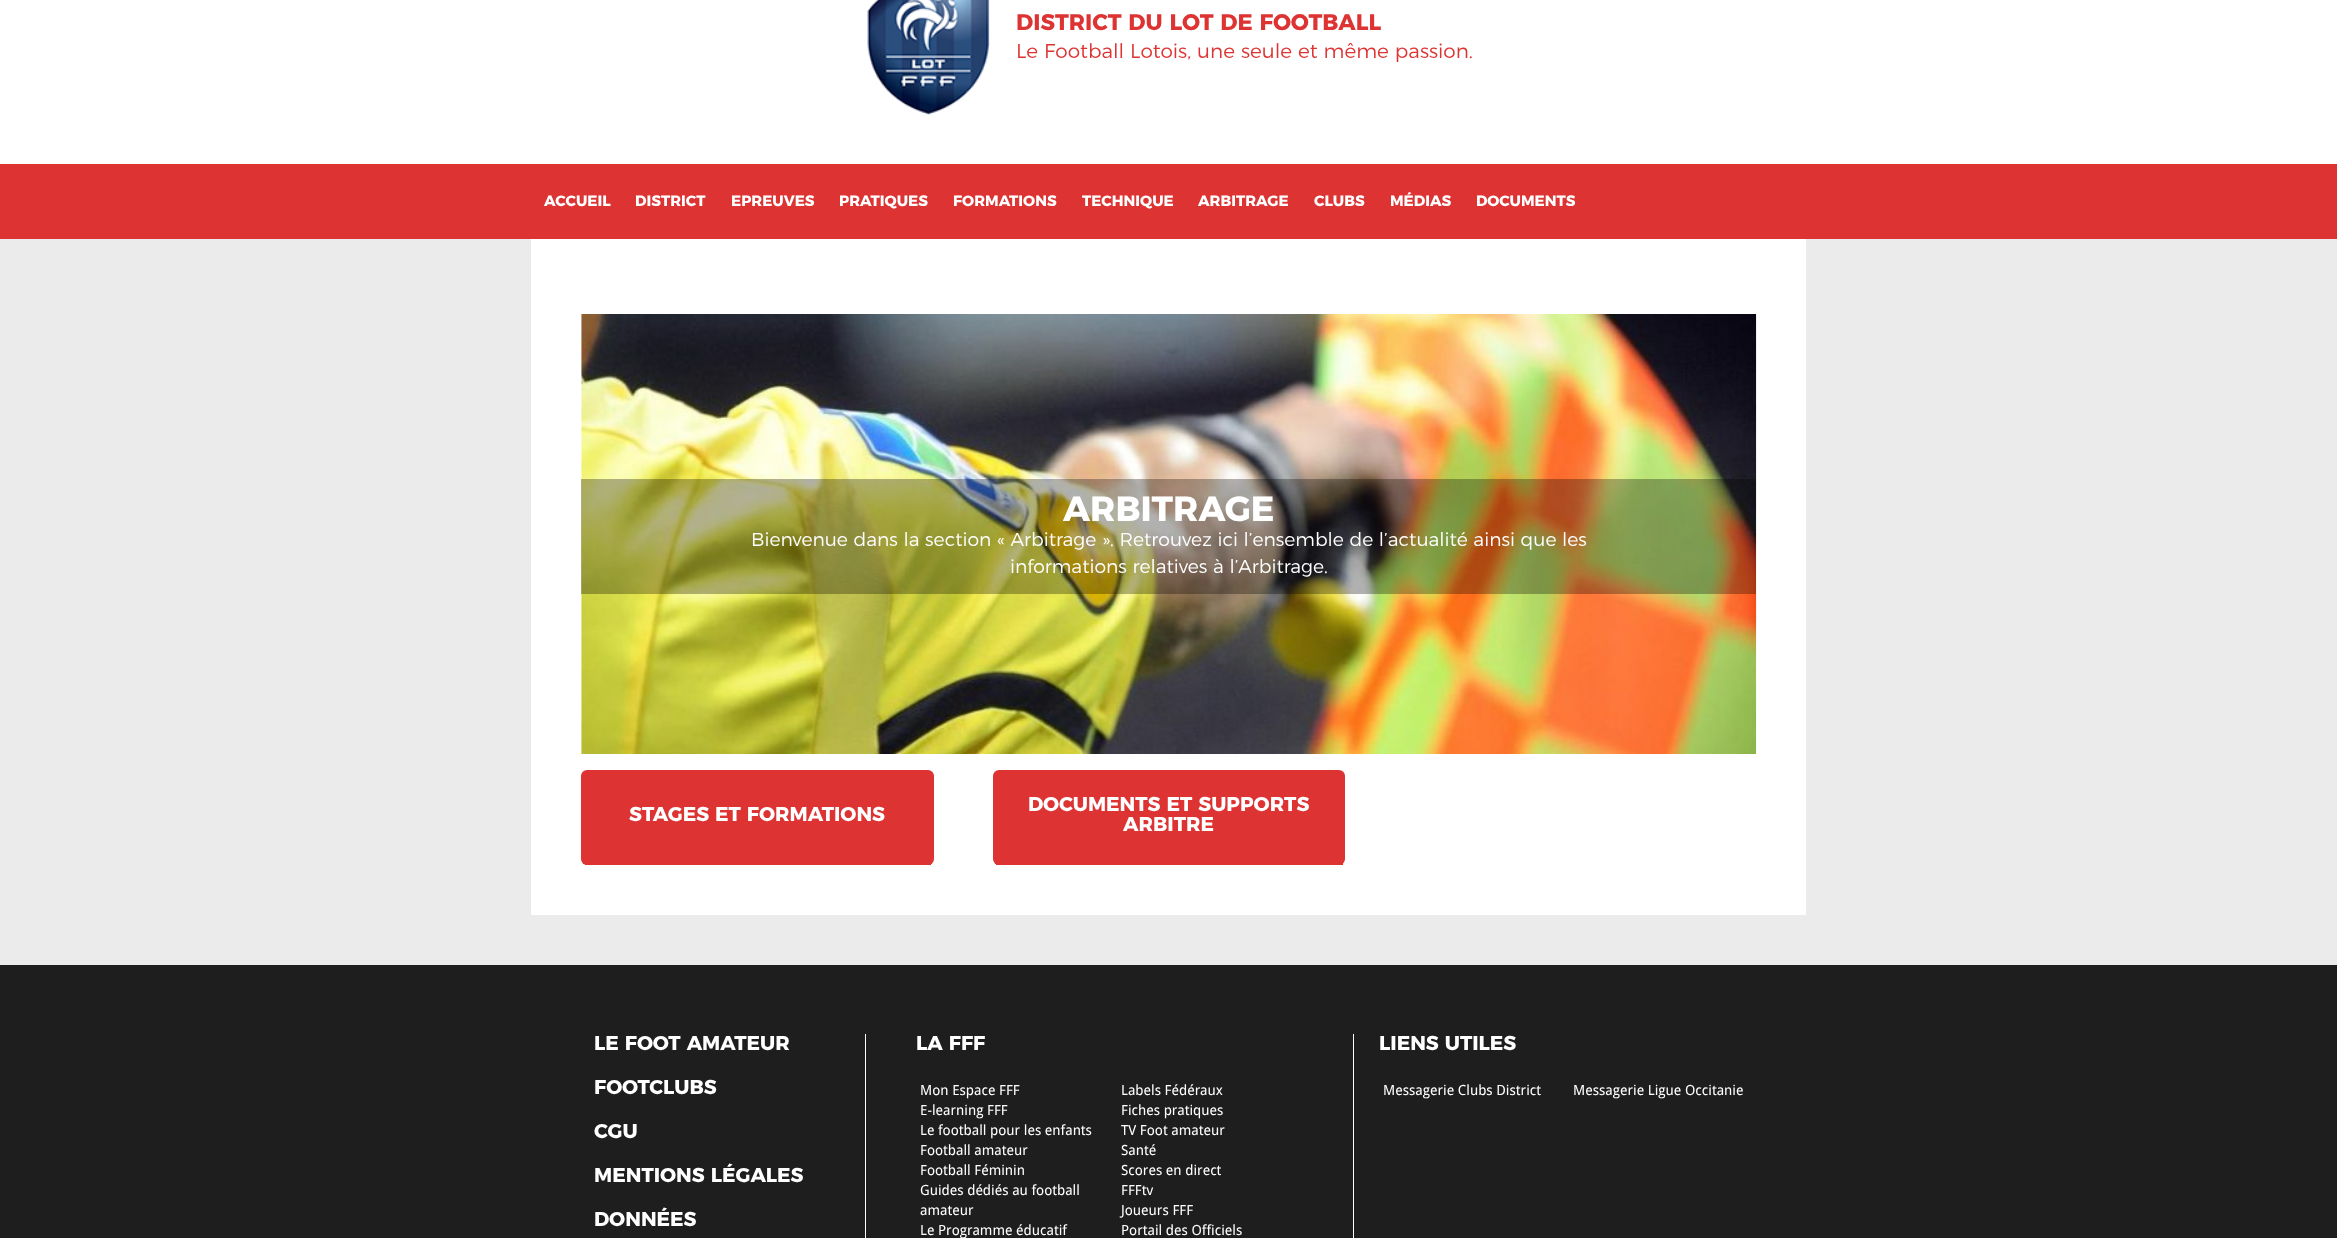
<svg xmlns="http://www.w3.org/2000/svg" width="2337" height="1238">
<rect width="100%" height="100%" fill="#ebebeb"/>
<rect width="2337" height="164" fill="#fff"/>
<image x="867" y="0" width="123" height="115" href="media/1.png"/>
<text x="1016" y="30" style="font-family:Montserrat;font-size:22.5px;font-weight:bold;fill:#d33">DISTRICT DU LOT DE FOOTBALL</text>
<text x="1016" y="58" style="font-family:Montserrat;font-size:20px;font-weight:300;fill:#d33">Le Football Lotois, une seule et même passion.</text>
<rect y="164" width="2337" height="75" fill="#d33"/>
<text x="544" y="206" style="font-family:Montserrat;font-size:15px;font-weight:bold;fill:#fff">ACCUEIL</text>
<text x="635" y="206" style="font-family:Montserrat;font-size:15px;font-weight:bold;fill:#fff">DISTRICT</text>
<text x="731" y="206" style="font-family:Montserrat;font-size:15px;font-weight:bold;fill:#fff">EPREUVES</text>
<text x="839" y="206" style="font-family:Montserrat;font-size:15px;font-weight:bold;fill:#fff">PRATIQUES</text>
<text x="953" y="206" style="font-family:Montserrat;font-size:15px;font-weight:bold;fill:#fff">FORMATIONS</text>
<text x="1082" y="206" style="font-family:Montserrat;font-size:15px;font-weight:bold;fill:#fff">TECHNIQUE</text>
<text x="1198" y="206" style="font-family:Montserrat;font-size:15px;font-weight:bold;fill:#fff">ARBITRAGE</text>
<text x="1314" y="206" style="font-family:Montserrat;font-size:15px;font-weight:bold;fill:#fff">CLUBS</text>
<text x="1390" y="206" style="font-family:Montserrat;font-size:15px;font-weight:bold;fill:#fff">MÉDIAS</text>
<text x="1476" y="206" style="font-family:Montserrat;font-size:15px;font-weight:bold;fill:#fff">DOCUMENTS</text>
<rect x="531" y="239" width="1275" height="676" fill="#fff"/>
<image x="581" y="314" width="1176" height="440" href="media/2.png"/>
<rect x="581" y="479" width="1175" height="115" fill="#0000004d"/>
<text x="1063" y="521" style="font-family:Montserrat;font-size:35px;font-weight:bold;fill:#fff">ARBITRAGE</text>
<text x="751" y="546" style="font-family:Montserrat;font-size:18.75px;font-weight:300;fill:#fff">Bienvenue dans la section « Arbitrage ». Retrouvez ici l’ensemble de l’actualité ainsi que les</text>
<text x="1010" y="573" style="font-family:Montserrat;font-size:18.75px;font-weight:300;fill:#fff">informations relatives à l’Arbitrage.</text>
<rect x="581" y="770" width="353" height="95" rx="6" fill="#d33"/>
<rect x="585" y="864" width="346" height="1" fill="#d33"/>
<text x="629" y="821" style="font-family:Montserrat;font-size:20px;font-weight:bold;fill:#fff">STAGES ET FORMATIONS</text>
<rect x="993" y="770" width="352" height="95" rx="6" fill="#d33"/>
<rect x="996" y="863" width="347" height="2" fill="#d33"/>
<text x="1028" y="811" style="font-family:Montserrat;font-size:20px;font-weight:bold;fill:#fff">DOCUMENTS ET SUPPORTS</text>
<text x="1123" y="831" style="font-family:Montserrat;font-size:20px;font-weight:bold;fill:#fff">ARBITRE</text>
<rect y="965" width="2337" height="273" fill="#1e1e1e"/>
<text x="594" y="1050" style="font-family:Montserrat;font-size:20px;font-weight:bold;fill:#fff">LE FOOT AMATEUR</text>
<text x="594" y="1094" style="font-family:Montserrat;font-size:20px;font-weight:bold;fill:#fff">FOOTCLUBS</text>
<text x="594" y="1138" style="font-family:Montserrat;font-size:20px;font-weight:bold;fill:#fff">CGU</text>
<text x="594" y="1182" style="font-family:Montserrat;font-size:20px;font-weight:bold;fill:#fff">MENTIONS LÉGALES</text>
<text x="594" y="1226" style="font-family:Montserrat;font-size:20px;font-weight:bold;fill:#fff">DONNÉES</text>
<rect x="1353" y="1034" width="1" height="204" fill="#fff"/>
<rect x="865" y="1034" width="1" height="204" fill="#fff"/>
<text x="916" y="1050" style="font-family:Montserrat;font-size:20px;font-weight:bold;fill:#fff">LA FFF</text>
<text x="920" y="1095" style="font-family:Droid Sans;font-size:14px;fill:#fff">Mon Espace FFF</text>
<text x="1121" y="1095" style="font-family:Droid Sans;font-size:14px;fill:#fff">Labels Fédéraux</text>
<text x="920" y="1115" style="font-family:Droid Sans;font-size:14px;fill:#fff">E-learning FFF</text>
<text x="1121" y="1115" style="font-family:Droid Sans;font-size:14px;fill:#fff">Fiches pratiques</text>
<text x="920" y="1135" style="font-family:Droid Sans;font-size:14px;fill:#fff">Le football pour les enfants</text>
<text x="1121" y="1135" style="font-family:Droid Sans;font-size:14px;fill:#fff">TV Foot amateur</text>
<text x="920" y="1155" style="font-family:Droid Sans;font-size:14px;fill:#fff">Football amateur</text>
<text x="1121" y="1155" style="font-family:Droid Sans;font-size:14px;fill:#fff">Santé</text>
<text x="920" y="1175" style="font-family:Droid Sans;font-size:14px;fill:#fff">Football Féminin</text>
<text x="1121" y="1175" style="font-family:Droid Sans;font-size:14px;fill:#fff">Scores en direct</text>
<text x="920" y="1195" style="font-family:Droid Sans;font-size:14px;fill:#fff">Guides dédiés au football</text>
<text x="920" y="1215" style="font-family:Droid Sans;font-size:14px;fill:#fff">amateur</text>
<text x="1121" y="1195" style="font-family:Droid Sans;font-size:14px;fill:#fff">FFFtv</text>
<text x="1121" y="1215" style="font-family:Droid Sans;font-size:14px;fill:#fff">Joueurs FFF</text>
<text x="920" y="1235" style="font-family:Droid Sans;font-size:14px;fill:#fff">Le Programme éducatif</text>
<text x="1121" y="1235" style="font-family:Droid Sans;font-size:14px;fill:#fff">Portail des Officiels</text>
<text x="1379" y="1050" style="font-family:Montserrat;font-size:20px;font-weight:bold;fill:#fff">LIENS UTILES</text>
<text x="1383" y="1095" style="font-family:Droid Sans;font-size:14px;fill:#fff">Messagerie Clubs District</text>
<text x="1573" y="1095" style="font-family:Droid Sans;font-size:14px;fill:#fff">Messagerie Ligue Occitanie</text>
</svg>
